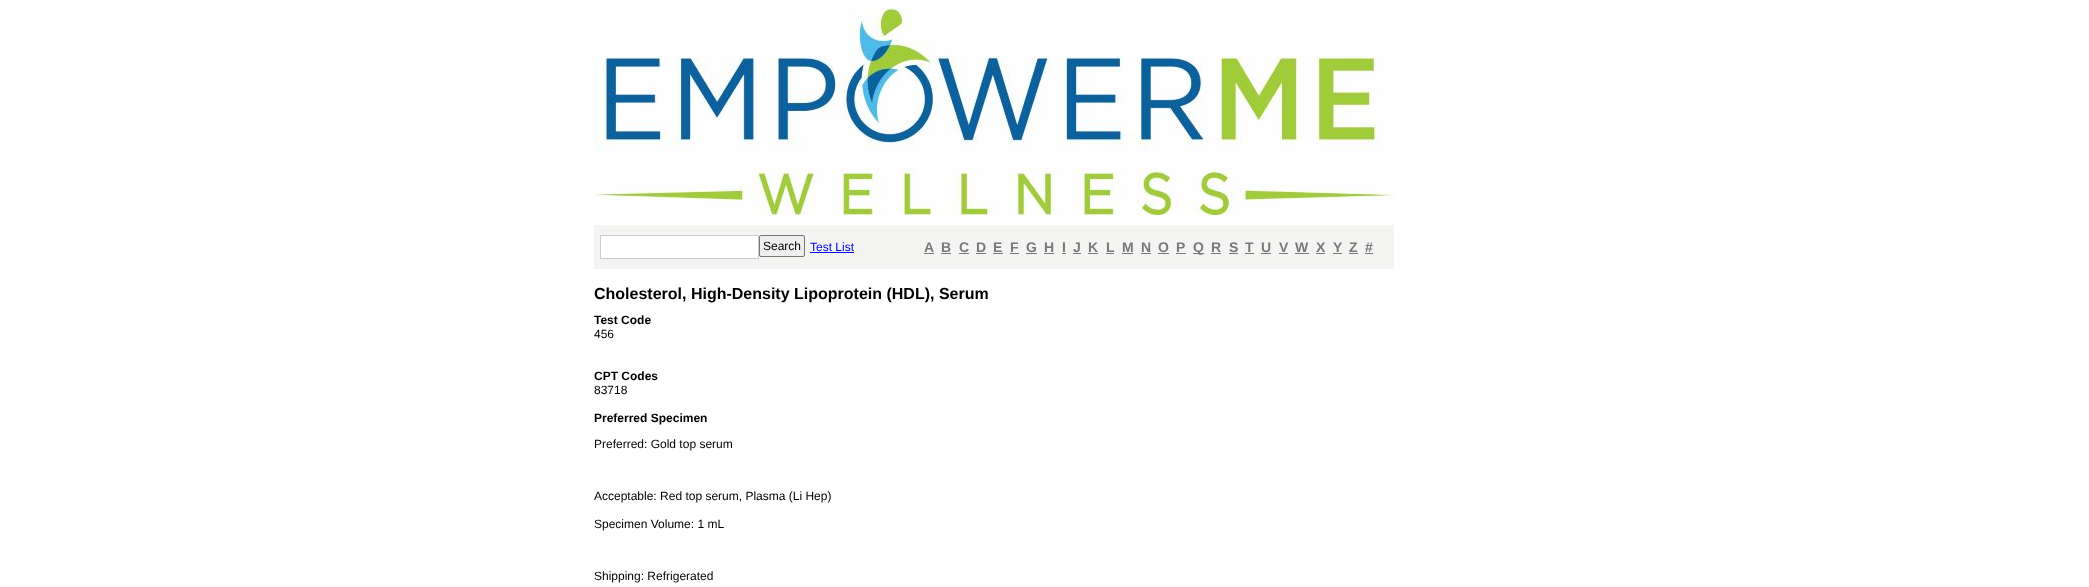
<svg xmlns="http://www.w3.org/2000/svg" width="2089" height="587">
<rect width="100%" height="100%" fill="#fff"/>
<image x="594" y="8" width="800" height="207" href="media/1.png"/>
<rect x="594" y="225" width="800" height="44" fill="#f4f4f3"/>
<rect x="600.5" y="235.5" width="158" height="23" fill="#fff" stroke="#cdccca"/>
<rect x="759.5" y="235.5" width="45" height="21" rx="1.5" fill="#efefef" stroke="#767676"/>
<text x="763" y="250" style="font-family:Liberation Sans;font-size:12px;fill:#000">Search</text>
<text x="810" y="251" style="font-family:Liberation Sans;font-size:12px;fill:#00e">Test List</text>
<rect x="810" y="252" width="44" height="1" fill="#00e"/>
<text x="924" y="252" style="font-family:Liberation Sans;font-size:14px;font-weight:bold;fill:#7a797a">A</text>
<rect x="924" y="253" width="10" height="1" fill="#7a797a"/>
<text x="941" y="252" style="font-family:Liberation Sans;font-size:14px;font-weight:bold;fill:#7a797a">B</text>
<rect x="941" y="253" width="10" height="1" fill="#7a797a"/>
<text x="959" y="252" style="font-family:Liberation Sans;font-size:14px;font-weight:bold;fill:#7a797a">C</text>
<rect x="959" y="253" width="10" height="1" fill="#7a797a"/>
<text x="976" y="252" style="font-family:Liberation Sans;font-size:14px;font-weight:bold;fill:#7a797a">D</text>
<rect x="976" y="253" width="10" height="1" fill="#7a797a"/>
<text x="993" y="252" style="font-family:Liberation Sans;font-size:14px;font-weight:bold;fill:#7a797a">E</text>
<rect x="993" y="253" width="10" height="1" fill="#7a797a"/>
<text x="1010" y="252" style="font-family:Liberation Sans;font-size:14px;font-weight:bold;fill:#7a797a">F</text>
<rect x="1010" y="253" width="9" height="1" fill="#7a797a"/>
<text x="1026" y="252" style="font-family:Liberation Sans;font-size:14px;font-weight:bold;fill:#7a797a">G</text>
<rect x="1026" y="253" width="11" height="1" fill="#7a797a"/>
<text x="1044" y="252" style="font-family:Liberation Sans;font-size:14px;font-weight:bold;fill:#7a797a">H</text>
<rect x="1044" y="253" width="10" height="1" fill="#7a797a"/>
<text x="1062" y="252" style="font-family:Liberation Sans;font-size:14px;font-weight:bold;fill:#7a797a">I</text>
<rect x="1062" y="253" width="4" height="1" fill="#7a797a"/>
<text x="1073" y="252" style="font-family:Liberation Sans;font-size:14px;font-weight:bold;fill:#7a797a">J</text>
<rect x="1073" y="253" width="8" height="1" fill="#7a797a"/>
<text x="1088" y="252" style="font-family:Liberation Sans;font-size:14px;font-weight:bold;fill:#7a797a">K</text>
<rect x="1088" y="253" width="10" height="1" fill="#7a797a"/>
<text x="1106" y="252" style="font-family:Liberation Sans;font-size:14px;font-weight:bold;fill:#7a797a">L</text>
<rect x="1106" y="253" width="8" height="1" fill="#7a797a"/>
<text x="1122" y="252" style="font-family:Liberation Sans;font-size:14px;font-weight:bold;fill:#7a797a">M</text>
<rect x="1122" y="253" width="11" height="1" fill="#7a797a"/>
<text x="1141" y="252" style="font-family:Liberation Sans;font-size:14px;font-weight:bold;fill:#7a797a">N</text>
<rect x="1141" y="253" width="10" height="1" fill="#7a797a"/>
<text x="1158" y="252" style="font-family:Liberation Sans;font-size:14px;font-weight:bold;fill:#7a797a">O</text>
<rect x="1158" y="253" width="11" height="1" fill="#7a797a"/>
<text x="1176" y="252" style="font-family:Liberation Sans;font-size:14px;font-weight:bold;fill:#7a797a">P</text>
<rect x="1176" y="253" width="10" height="1" fill="#7a797a"/>
<rect x="1193" y="253" width="11" height="1" fill="#7a797a"/>
<text x="1193" y="252" style="font-family:Liberation Sans;font-size:14px;font-weight:bold;fill:#7a797a">Q</text>
<text x="1211" y="252" style="font-family:Liberation Sans;font-size:14px;font-weight:bold;fill:#7a797a">R</text>
<rect x="1211" y="253" width="10" height="1" fill="#7a797a"/>
<text x="1229" y="252" style="font-family:Liberation Sans;font-size:14px;font-weight:bold;fill:#7a797a">S</text>
<rect x="1229" y="253" width="9" height="1" fill="#7a797a"/>
<text x="1245" y="252" style="font-family:Liberation Sans;font-size:14px;font-weight:bold;fill:#7a797a">T</text>
<rect x="1245" y="253" width="9" height="1" fill="#7a797a"/>
<text x="1261" y="252" style="font-family:Liberation Sans;font-size:14px;font-weight:bold;fill:#7a797a">U</text>
<rect x="1261" y="253" width="10" height="1" fill="#7a797a"/>
<text x="1279" y="252" style="font-family:Liberation Sans;font-size:14px;font-weight:bold;fill:#7a797a">V</text>
<rect x="1279" y="253" width="9" height="1" fill="#7a797a"/>
<text x="1295" y="252" style="font-family:Liberation Sans;font-size:14px;font-weight:bold;fill:#7a797a">W</text>
<rect x="1295" y="253" width="14" height="1" fill="#7a797a"/>
<text x="1316" y="252" style="font-family:Liberation Sans;font-size:14px;font-weight:bold;fill:#7a797a">X</text>
<rect x="1316" y="253" width="9" height="1" fill="#7a797a"/>
<text x="1333" y="252" style="font-family:Liberation Sans;font-size:14px;font-weight:bold;fill:#7a797a">Y</text>
<rect x="1333" y="253" width="9" height="1" fill="#7a797a"/>
<text x="1349" y="252" style="font-family:Liberation Sans;font-size:14px;font-weight:bold;fill:#7a797a">Z</text>
<rect x="1349" y="253" width="9" height="1" fill="#7a797a"/>
<text x="1365" y="252" style="font-family:Liberation Sans;font-size:14px;font-weight:bold;fill:#7a797a">#</text>
<rect x="1365" y="253" width="8" height="1" fill="#7a797a"/>
<text x="594" y="299" style="font-family:Liberation Sans;font-size:16px;font-weight:bold;fill:#000">Cholesterol, High-Density Lipoprotein (HDL), Serum</text>
<text x="594" y="324" style="font-family:Liberation Sans;font-size:12px;font-weight:bold;fill:#000">Test Code</text>
<text x="594" y="338" style="font-family:Liberation Sans;font-size:12px;fill:#000">456</text>
<text x="594" y="380" style="font-family:Liberation Sans;font-size:12px;font-weight:bold;fill:#000">CPT Codes</text>
<text x="594" y="394" style="font-family:Liberation Sans;font-size:12px;fill:#000">83718</text>
<text x="594" y="422" style="font-family:Liberation Sans;font-size:12px;font-weight:bold;fill:#000">Preferred Specimen</text>
<text x="594" y="448" style="font-family:Liberation Sans;font-size:12px;fill:#000">Preferred: Gold top serum</text>
<text x="594" y="500" style="font-family:Liberation Sans;font-size:12px;fill:#000">Acceptable: Red top serum, Plasma (Li Hep)</text>
<text x="594" y="528" style="font-family:Liberation Sans;font-size:12px;fill:#000">Specimen Volume: 1 mL</text>
<text x="594" y="580" style="font-family:Liberation Sans;font-size:12px;fill:#000">Shipping: Refrigerated</text>
</svg>
